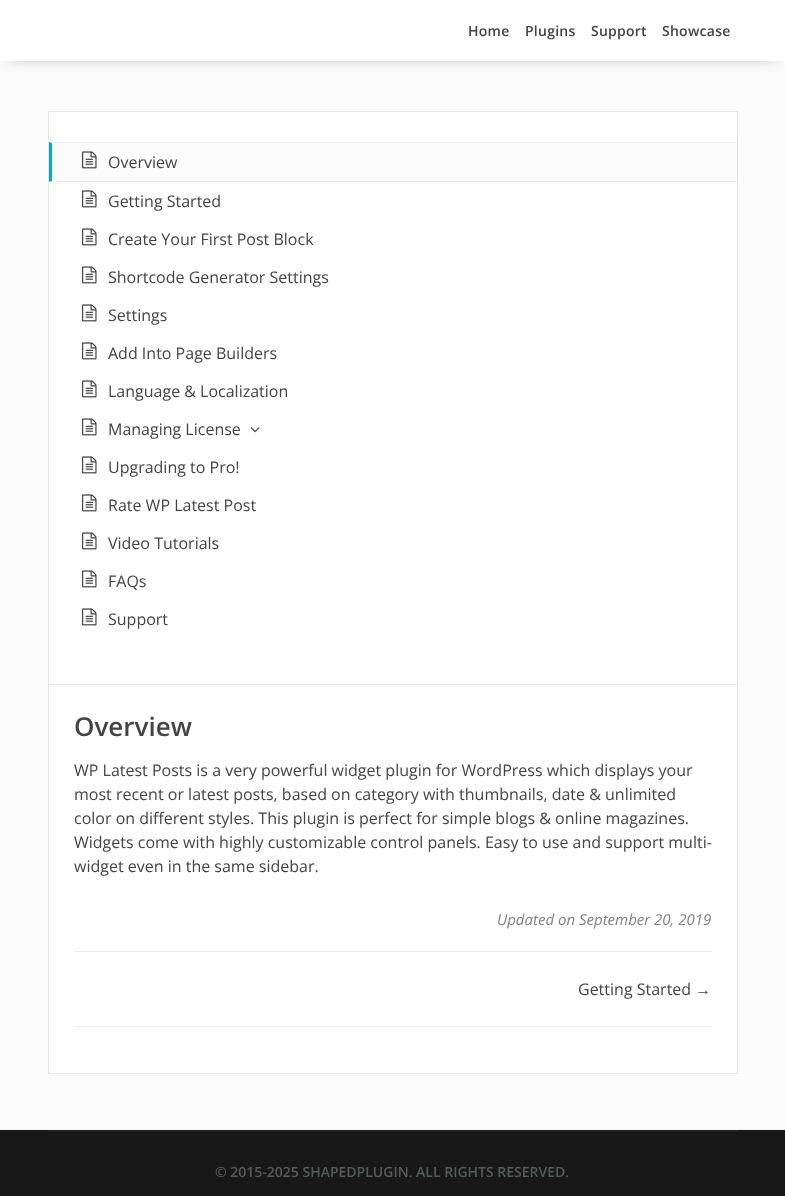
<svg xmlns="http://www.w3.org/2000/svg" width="785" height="1196">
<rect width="100%" height="100%" fill="#fbfbfb"/>
<rect x="8" y="12" width="769" height="45" fill="#0000004d" filter="blur(8px)"/>
<rect width="785" height="61" fill="#fff"/>
<text x="468" y="36" style="font-family:Open Sans;font-size:14px;font-weight:600;letter-spacing:0.25px;fill:#444">Home</text>
<text x="525" y="36" style="font-family:Open Sans;font-size:14px;font-weight:600;letter-spacing:0.25px;fill:#444">Plugins</text>
<text x="591" y="36" style="font-family:Open Sans;font-size:14px;font-weight:600;letter-spacing:0.25px;fill:#444">Support</text>
<text x="662" y="36" style="font-family:Open Sans;font-size:14px;font-weight:600;letter-spacing:0.25px;fill:#444">Showcase</text>
<rect y="1129" width="785" height="1" fill="#efefef"/>
<rect x="48.5" y="111.5" width="689" height="962" fill="#fff" stroke="#e5e5e5"/>
<rect x="49" y="684" width="688" height="1" fill="#e5e5e5"/>
<rect x="49" y="142" width="688" height="40" fill="#fbfbfb"/>
<path d="M49 142h688v1h-685z" fill="#ededed"/>
<path d="M737 182h-688l3-1h685z" fill="#ededed"/>
<path d="M49 182v-40l3 1v38z" fill="#06adbf"/>
<image x="82" y="151" width="15" height="18" href="media/1.png"/>
<text x="108" y="168" style="font-family:Open Sans;font-size:16px;fill:#444">Overview</text>
<image x="82" y="190" width="15" height="18" href="media/2.png"/>
<text x="108" y="207" style="font-family:Open Sans;font-size:16px;fill:#444">Getting Started</text>
<image x="82" y="228" width="15" height="18" href="media/2.png"/>
<text x="108" y="245" style="font-family:Open Sans;font-size:16px;fill:#444">Create Your First Post Block</text>
<image x="82" y="266" width="15" height="18" href="media/2.png"/>
<text x="108" y="283" style="font-family:Open Sans;font-size:16px;fill:#444">Shortcode Generator Settings</text>
<image x="82" y="304" width="15" height="18" href="media/2.png"/>
<text x="108" y="321" style="font-family:Open Sans;font-size:16px;fill:#444">Settings</text>
<image x="82" y="342" width="15" height="18" href="media/2.png"/>
<text x="108" y="359" style="font-family:Open Sans;font-size:16px;fill:#444">Add Into Page Builders</text>
<image x="82" y="380" width="15" height="18" href="media/2.png"/>
<text x="108" y="397" style="font-family:Open Sans;font-size:16px;fill:#444">Language &amp; Localization</text>
<image x="82" y="418" width="15" height="18" href="media/2.png"/>
<text x="108" y="435" style="font-family:Open Sans;font-size:16px;fill:#444">Managing License</text>
<image x="250" y="427" width="10" height="6" href="media/3.png"/>
<image x="82" y="456" width="15" height="18" href="media/2.png"/>
<text x="108" y="473" style="font-family:Open Sans;font-size:16px;fill:#444">Upgrading to Pro!</text>
<image x="82" y="494" width="15" height="18" href="media/2.png"/>
<text x="108" y="511" style="font-family:Open Sans;font-size:16px;fill:#444">Rate WP Latest Post</text>
<image x="82" y="532" width="15" height="18" href="media/2.png"/>
<text x="108" y="549" style="font-family:Open Sans;font-size:16px;fill:#444">Video Tutorials</text>
<image x="82" y="570" width="15" height="18" href="media/2.png"/>
<text x="108" y="587" style="font-family:Open Sans;font-size:16px;fill:#444">FAQs</text>
<image x="82" y="608" width="15" height="18" href="media/2.png"/>
<text x="108" y="625" style="font-family:Open Sans;font-size:16px;fill:#444">Support</text>
<text x="74" y="736" style="font-family:Open Sans;font-size:26px;font-weight:600;fill:#444">Overview</text>
<text x="74" y="776" style="font-family:Open Sans;font-size:16px;fill:#444">WP Latest Posts is a very powerful widget plugin for WordPress which displays your</text>
<text x="74" y="800" style="font-family:Open Sans;font-size:16px;fill:#444">most recent or latest posts, based on category with thumbnails, date &amp; unlimited</text>
<text x="74" y="824" style="font-family:Open Sans;font-size:16px;fill:#444">color on different styles. This plugin is perfect for simple blogs &amp; online magazines.</text>
<text x="74" y="848" style="font-family:Open Sans;font-size:16px;fill:#444">Widgets come with highly customizable control panels. Easy to use and support multi-</text>
<text x="74" y="872" style="font-family:Open Sans;font-size:16px;fill:#444">widget even in the same sidebar.</text>
<text x="497" y="925" style="font-family:Open Sans;font-size:15px;font-style:italic;fill:#828282">Updated on September 20, 2019</text>
<rect x="74" y="951" width="638" height="1" fill="#eee"/>
<rect x="74" y="1026" width="638" height="1" fill="#eee"/>
<text x="578" y="995" style="font-family:Open Sans;font-size:16px;fill:#444">Getting Started</text>
<text x="695" y="995" style="font-family:Liberation Sans;font-size:16px;fill:#444">→</text>
<rect y="1130" width="785" height="66" fill="#181818"/>
<rect x="48" y="1130" width="690" height="1" fill="#2c2c2c"/>
<text x="215" y="1177" style="font-family:Open Sans;font-size:14px;font-weight:600;fill:#555c5d">© 2015-2025 SHAPEDPLUGIN. ALL RIGHTS RESERVED.</text>
</svg>
